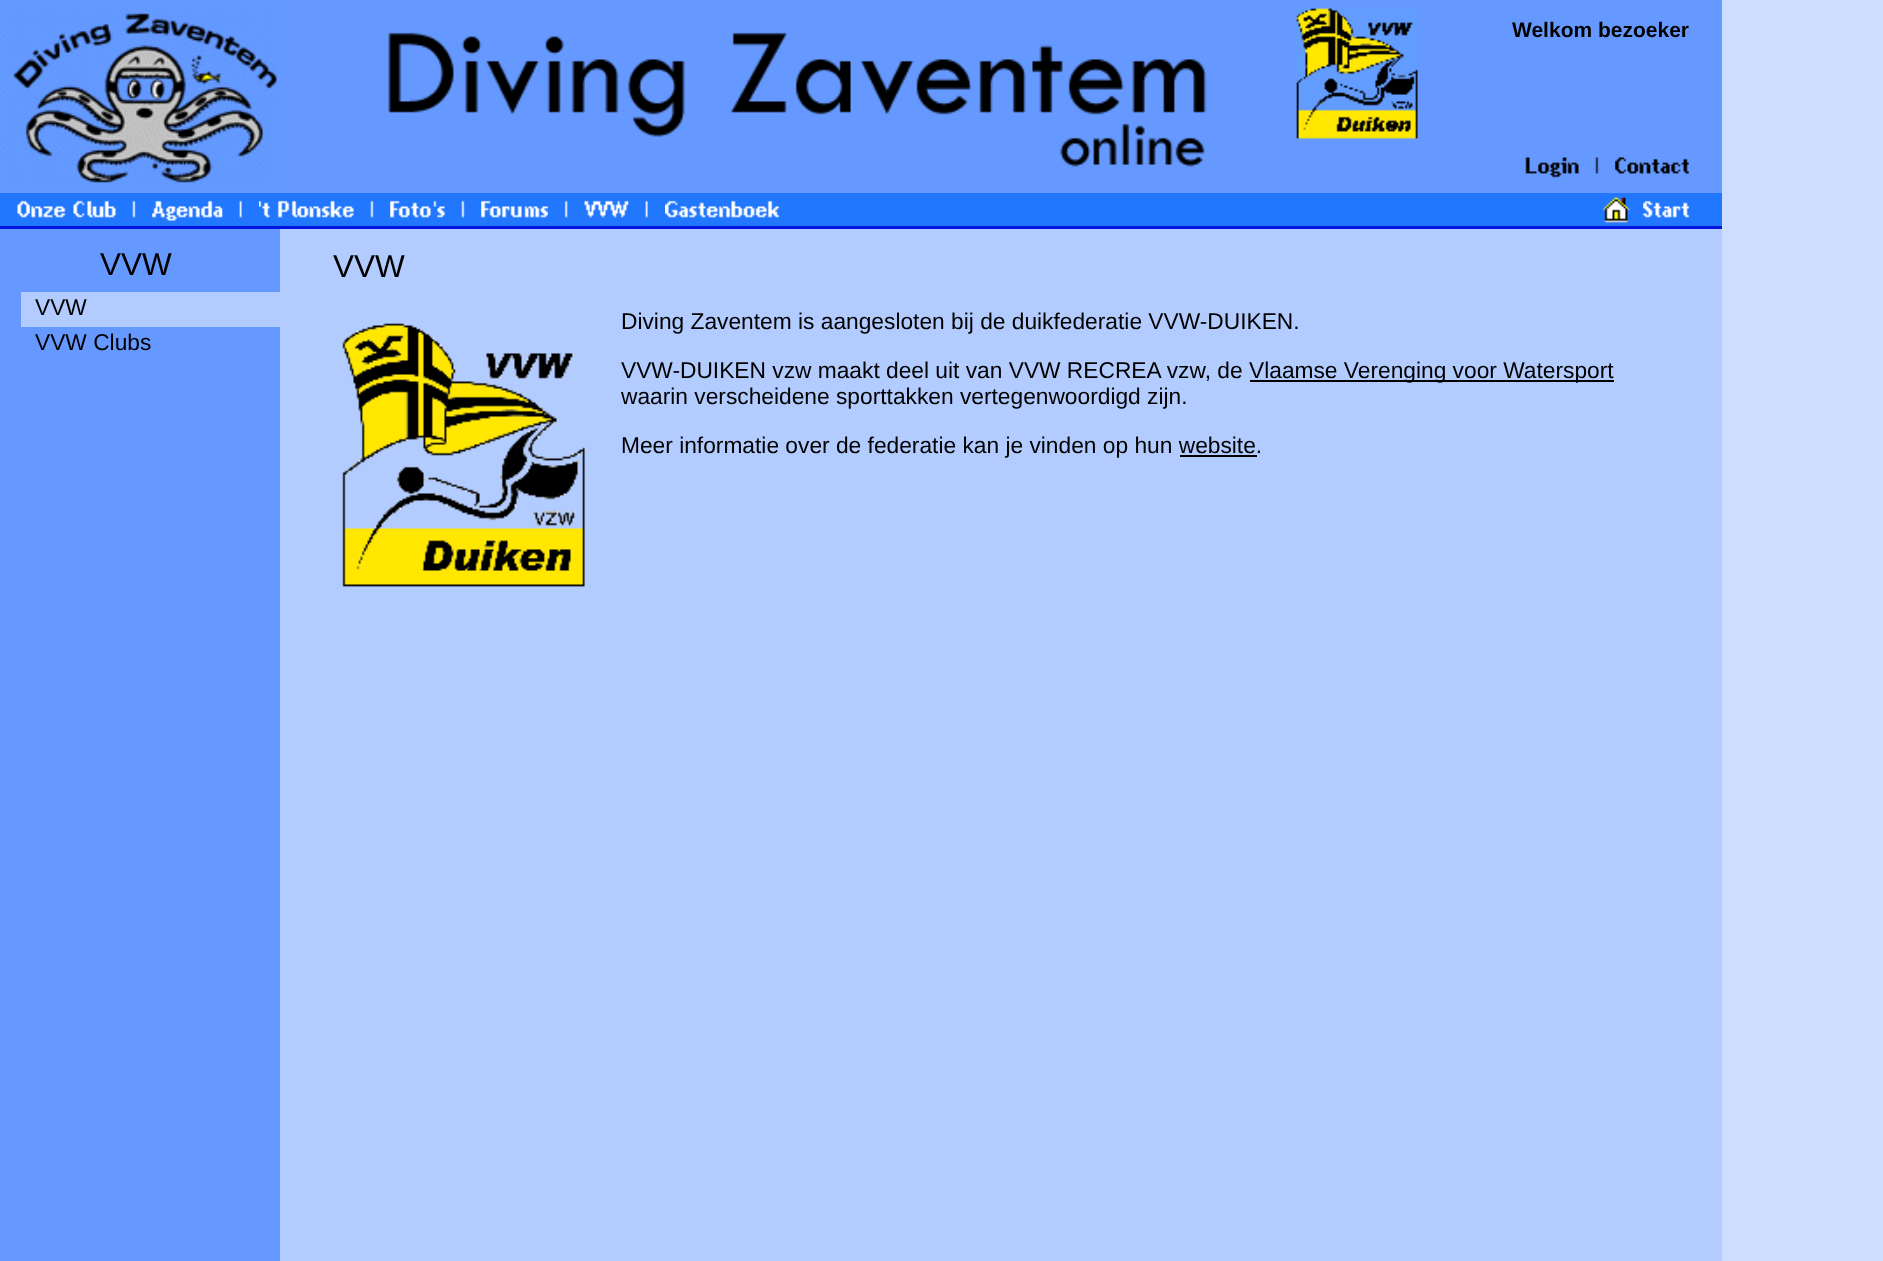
<svg xmlns="http://www.w3.org/2000/svg" width="1883" height="1261">
<rect width="100%" height="100%" fill="#cdf"/>
<rect width="1722" height="193" fill="#69f"/>
<image x="0" y="4" width="278" height="183" href="media/1.png"/>
<image x="1296" y="8" width="122" height="131" href="media/2.png"/>
<text x="1512" y="37" style="font-family:Liberation Sans;font-size:21px;font-weight:bold;fill:#000">Welkom bezoeker</text>
<image x="1525" y="157" width="54" height="21" href="media/3.png"/>
<image x="1595" y="157" width="4" height="17" href="media/4.png"/>
<image x="1615" y="157" width="74" height="17" href="media/5.png"/>
<image x="388" y="32" width="819" height="135" href="media/6.png"/>
<rect y="193" width="1722" height="33" fill="#27f"/>
<image x="17" y="200" width="99" height="18" href="media/7.png"/>
<image x="132" y="200" width="4" height="18" href="media/8.png"/>
<image x="152" y="200" width="71" height="21" href="media/9.png"/>
<image x="239" y="200" width="3" height="18" href="media/10.png"/>
<image x="259" y="200" width="95" height="18" href="media/11.png"/>
<image x="370" y="200" width="4" height="18" href="media/8.png"/>
<image x="390" y="200" width="55" height="18" href="media/12.png"/>
<image x="461" y="200" width="4" height="18" href="media/8.png"/>
<image x="481" y="200" width="67" height="18" href="media/13.png"/>
<image x="564" y="200" width="4" height="18" href="media/14.png"/>
<image x="584" y="200" width="45" height="18" href="media/15.png"/>
<image x="645" y="200" width="3" height="18" href="media/10.png"/>
<image x="665" y="200" width="114" height="18" href="media/16.png"/>
<image x="1602" y="197" width="28" height="26" href="media/17.png"/>
<image x="1643" y="200" width="46" height="18" href="media/18.png"/>
<rect y="226" width="1722" height="3" fill="#0014e0"/>
<rect y="229" width="280" height="1032" fill="#69f"/>
<text x="100" y="275" style="font-family:Liberation Sans;font-size:31.5px;fill:#000">VVW</text>
<rect x="21" y="292" width="259" height="35" fill="#b3ccff"/>
<text x="35" y="315" style="font-family:Liberation Sans;font-size:22.75px;fill:#000">VVW</text>
<text x="35" y="350" style="font-family:Liberation Sans;font-size:22.75px;fill:#000">VVW Clubs</text>
<rect x="280" y="229" width="1442" height="1032" fill="#b3ccff"/>
<text x="333" y="277" style="font-family:Liberation Sans;font-size:31.5px;fill:#000">VVW</text>
<image x="342" y="323" width="243" height="264" href="media/19.png"/>
<text x="621" y="329" style="font-family:Liberation Sans;font-size:22.75px;fill:#000">Diving Zaventem is aangesloten bij de duikfederatie VVW-DUIKEN.</text>
<text x="621" y="378" style="font-family:Liberation Sans;font-size:22.75px;fill:#000">VVW-DUIKEN vzw maakt deel uit van VVW RECREA vzw, de</text>
<rect x="1250" y="380" width="364" height="2" fill="#000"/>
<text x="1249" y="378" style="font-family:Liberation Sans;font-size:22.75px;fill:#000">Vlaamse Verenging voor Watersport</text>
<text x="621" y="404" style="font-family:Liberation Sans;font-size:22.75px;fill:#000">waarin verscheidene sporttakken vertegenwoordigd zijn.</text>
<text x="621" y="453" style="font-family:Liberation Sans;font-size:22.75px;fill:#000">Meer informatie over de federatie kan je vinden op hun website.</text>
<rect x="1180" y="455" width="77" height="2" fill="#000"/>
</svg>
